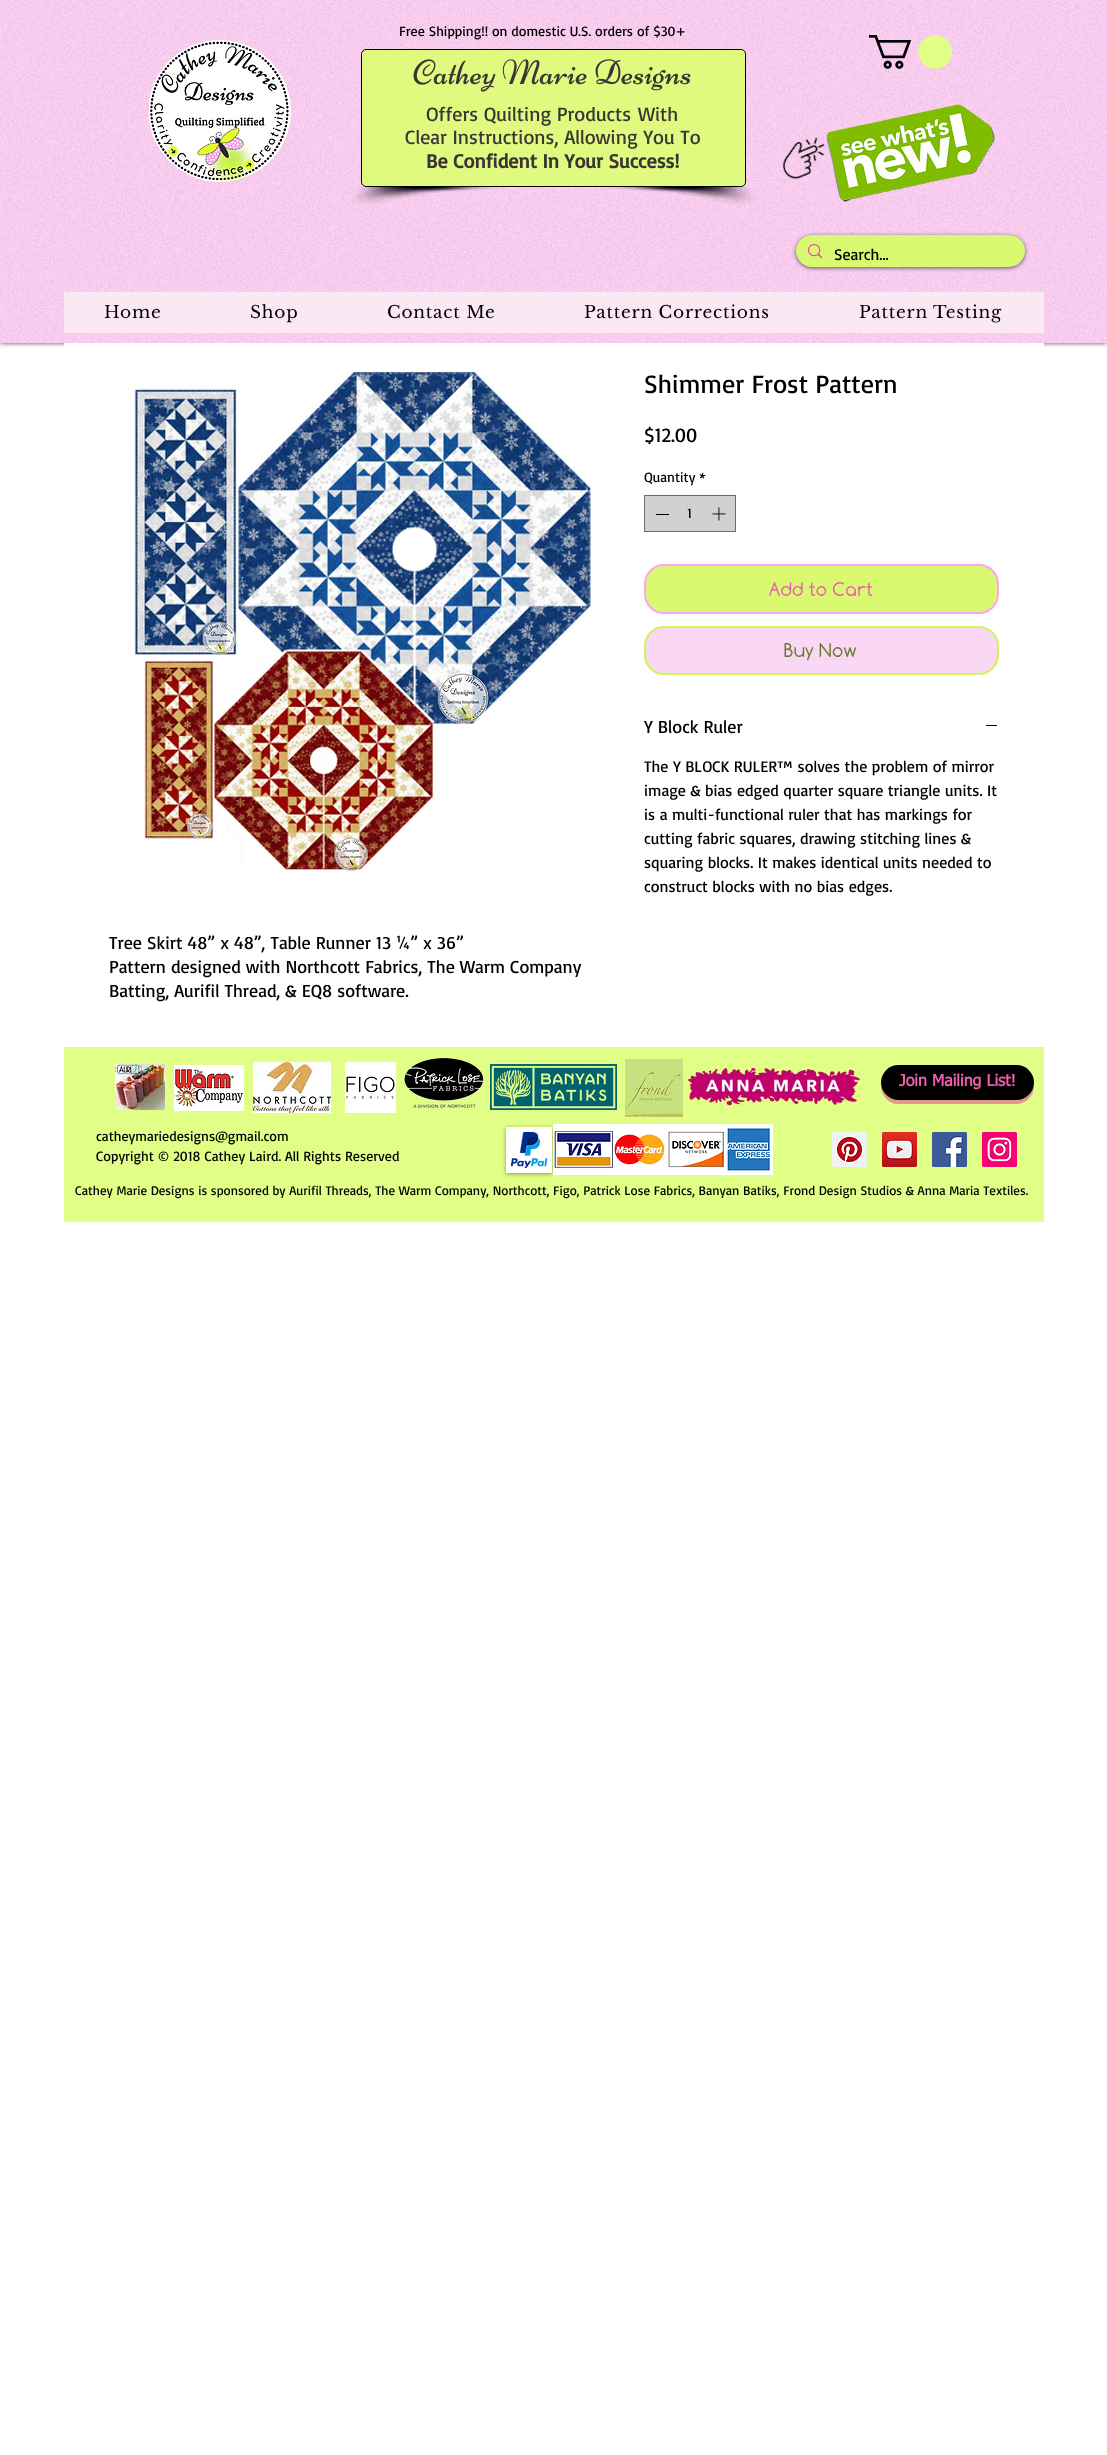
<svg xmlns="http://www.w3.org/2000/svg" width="1107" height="2455">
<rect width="100%" height="100%" fill="#fff"/>
<rect width="1107" height="343" fill="#000000b3" filter="blur(2.5px)"/>
<rect width="1107" height="343" fill="#ffd2f5"/>
<image x="0" y="0" width="1107" height="343" href="media/1.png"/>
<text x="399" y="36" style="font-family:Basic;font-size:14px;fill:#000">Free Shipping!! on domestic U.S. orders of $30+</text>
<image x="149" y="40" width="142" height="142" href="media/2.png"/>
<image x="869" y="35" width="83" height="34" href="media/3.png"/>
<rect x="361.5" y="49.5" width="384" height="137" rx="4.5" fill="#e0f97f" stroke="#000"/>
<image x="413" y="59" width="278" height="33" href="media/4.png"/>
<text x="426" y="121" style="font-family:Basic;font-size:20px;fill:#3b3434">Offers Quilting Products</text>
<text x="638" y="121" style="font-family:Basic;font-size:20px;fill:#3b3434">With</text>
<text x="405" y="144" style="font-family:Basic;font-size:20px;fill:#3b3434">Clear Instructions, Allowing You To</text>
<text x="426" y="168" style="font-family:Basic;font-size:20px;font-weight:bold;fill:#3b3434">Be Confident In Your Success!</text>
<image x="352" y="187" width="154" height="18" href="media/5.png"/>
<image x="601" y="187" width="154" height="18" href="media/6.png"/>
<image x="782" y="137" width="43" height="43" href="media/7.png"/>
<image x="826" y="104" width="169" height="98" href="media/8.png"/>
<rect x="796" y="236" width="229" height="32" rx="16" fill="#00000099" filter="blur(2px)"/>
<rect x="796" y="235" width="229" height="32" rx="16" fill="#d9fa70"/>
<image x="808" y="244" width="14" height="14" href="media/9.png"/>
<text x="834" y="260" style="font-family:Basic;font-size:16px;fill:#000">Search...</text>
<rect x="64" y="292" width="980" height="41" fill="#fae8f3"/>
<text x="104" y="318" style="font-family:Libre Baskerville;font-size:17px;letter-spacing:0.8px;fill:#000">Home</text>
<text x="250" y="318" style="font-family:Libre Baskerville;font-size:17px;letter-spacing:0.8px;fill:#000">Shop</text>
<text x="387" y="318" style="font-family:Libre Baskerville;font-size:17px;letter-spacing:0.8px;fill:#000">Contact Me</text>
<text x="584" y="318" style="font-family:Libre Baskerville;font-size:17px;letter-spacing:0.8px;fill:#000">Pattern Corrections</text>
<text x="859" y="318" style="font-family:Libre Baskerville;font-size:17px;letter-spacing:0.8px;fill:#000">Pattern Testing</text>
<rect x="64" y="343" width="980" height="5" fill="#fff"/>
<text x="644" y="393" style="font-family:Basic;font-size:26px;fill:#000">Shimmer Frost Pattern</text>
<text x="644" y="442" style="font-family:Basic;font-size:20px;fill:#000">$12.00</text>
<text x="644" y="482" style="font-family:Basic;font-size:14px;fill:#000">Quantity *</text>
<rect x="644.5" y="495.5" width="91" height="36" fill="#d1d1d1" stroke="#6c6c6c"/>
<rect x="656" y="514" width="13" height="1" fill="#000"/>
<text x="687" y="518" style="font-family:Basic;font-size:14px;fill:#000">1</text>
<image x="712" y="507" width="14" height="14" href="media/10.png"/>
<rect x="645" y="565" width="353" height="48" rx="19" fill="#d9fa70" stroke="#ffa3f6" stroke-width="2"/>
<text x="769" y="596" style="font-family:Comfortaa;font-size:20px;fill:#f05dac">Add to Cart</text>
<rect x="645" y="627" width="353" height="47" rx="19" fill="#fad7f5" stroke="#cff55b" stroke-width="2"/>
<text x="784" y="657" style="font-family:Comfortaa;font-size:20px;fill:#687b2d">Buy Now</text>
<text x="644" y="733" style="font-family:Basic;font-size:18px;fill:#000">Y Block Ruler</text>
<rect x="986" y="725" width="11" height="1" fill="#000"/>
<text x="644" y="772" style="font-family:Basic;font-size:16px;fill:#000">The Y BLOCK RULER™ solves the problem of mirror</text>
<text x="644" y="796" style="font-family:Basic;font-size:16px;fill:#000">image &amp; bias edged quarter square triangle units. It</text>
<text x="644" y="820" style="font-family:Basic;font-size:16px;fill:#000">is a multi-functional ruler that has markings for</text>
<text x="644" y="844" style="font-family:Basic;font-size:16px;fill:#000">cutting fabric squares, drawing stitching lines &amp;</text>
<text x="644" y="868" style="font-family:Basic;font-size:16px;fill:#000">squaring blocks. It makes identical units needed to</text>
<text x="644" y="892" style="font-family:Basic;font-size:16px;fill:#000">construct blocks with no bias edges.</text>
<image x="134" y="370" width="458" height="501" href="media/11.png"/>
<text x="109" y="949" style="font-family:Basic;font-size:18px;fill:#000">Tree Skirt 48” x 48”, Table Runner 13 ¼” x 36”</text>
<text x="109" y="973" style="font-family:Basic;font-size:18px;fill:#000">Pattern designed with Northcott Fabrics, The Warm Company</text>
<text x="109" y="997" style="font-family:Basic;font-size:18px;fill:#000">Batting, Aurifil Thread, &amp; EQ8 software.</text>
<rect x="64" y="1047" width="980" height="175" fill="#e1fe86"/>
<image x="115" y="1064" width="50" height="46" href="media/12.png"/>
<image x="174" y="1065" width="70" height="46" href="media/13.png"/>
<image x="253" y="1062" width="78" height="51" href="media/14.png"/>
<image x="345" y="1062" width="51" height="51" href="media/15.png"/>
<image x="404" y="1057" width="80" height="52" href="media/16.png"/>
<image x="490" y="1064" width="127" height="46" href="media/17.png"/>
<image x="625" y="1059" width="58" height="58" href="media/18.png"/>
<image x="688" y="1067" width="172" height="39" href="media/19.png"/>
<path d="M881 1084v2c0 10 8 18 17 18h118c10 0 18-8 18-18v-2c-1 9-9 16-18 16h-118c-8 0-16-7-17-16z" fill="#e3988c"/>
<rect x="881" y="1065" width="153" height="35" rx="17.5" fill="#000"/>
<text x="899" y="1086" style="font-family:tahoma;font-size:16px;font-weight:bold;fill:#f05dac">Join Mailing List!</text>
<text x="96" y="1141" style="font-family:Basic;font-size:14px;fill:#000">catheymariedesigns@gmail.com</text>
<text x="96" y="1161" style="font-family:Basic;font-size:14px;fill:#000">Copyright © 2018 Cathey Laird. All Rights Reserved</text>
<rect x="506" y="1128" width="46" height="46" fill="#00000066" filter="blur(2px)"/>
<rect x="506" y="1127" width="46" height="46" fill="#fff"/>
<image x="511" y="1132" width="36" height="36" href="media/20.png"/>
<image x="553" y="1124" width="220" height="51" href="media/21.png"/>
<image x="832" y="1132" width="35" height="35" href="media/22.png"/>
<image x="882" y="1132" width="35" height="35" href="media/23.png"/>
<image x="932" y="1132" width="35" height="35" href="media/24.png"/>
<image x="982" y="1132" width="35" height="35" href="media/25.png"/>
<text x="75" y="1195" style="font-family:Basic;font-size:13px;fill:#000">Cathey Marie Designs is sponsored by Aurifil Threads, The Warm Company, Northcott, Figo, Patrick Lose Fabrics, Banyan Batiks, Frond Design Studios &amp; Anna Maria Textiles.</text>
</svg>
